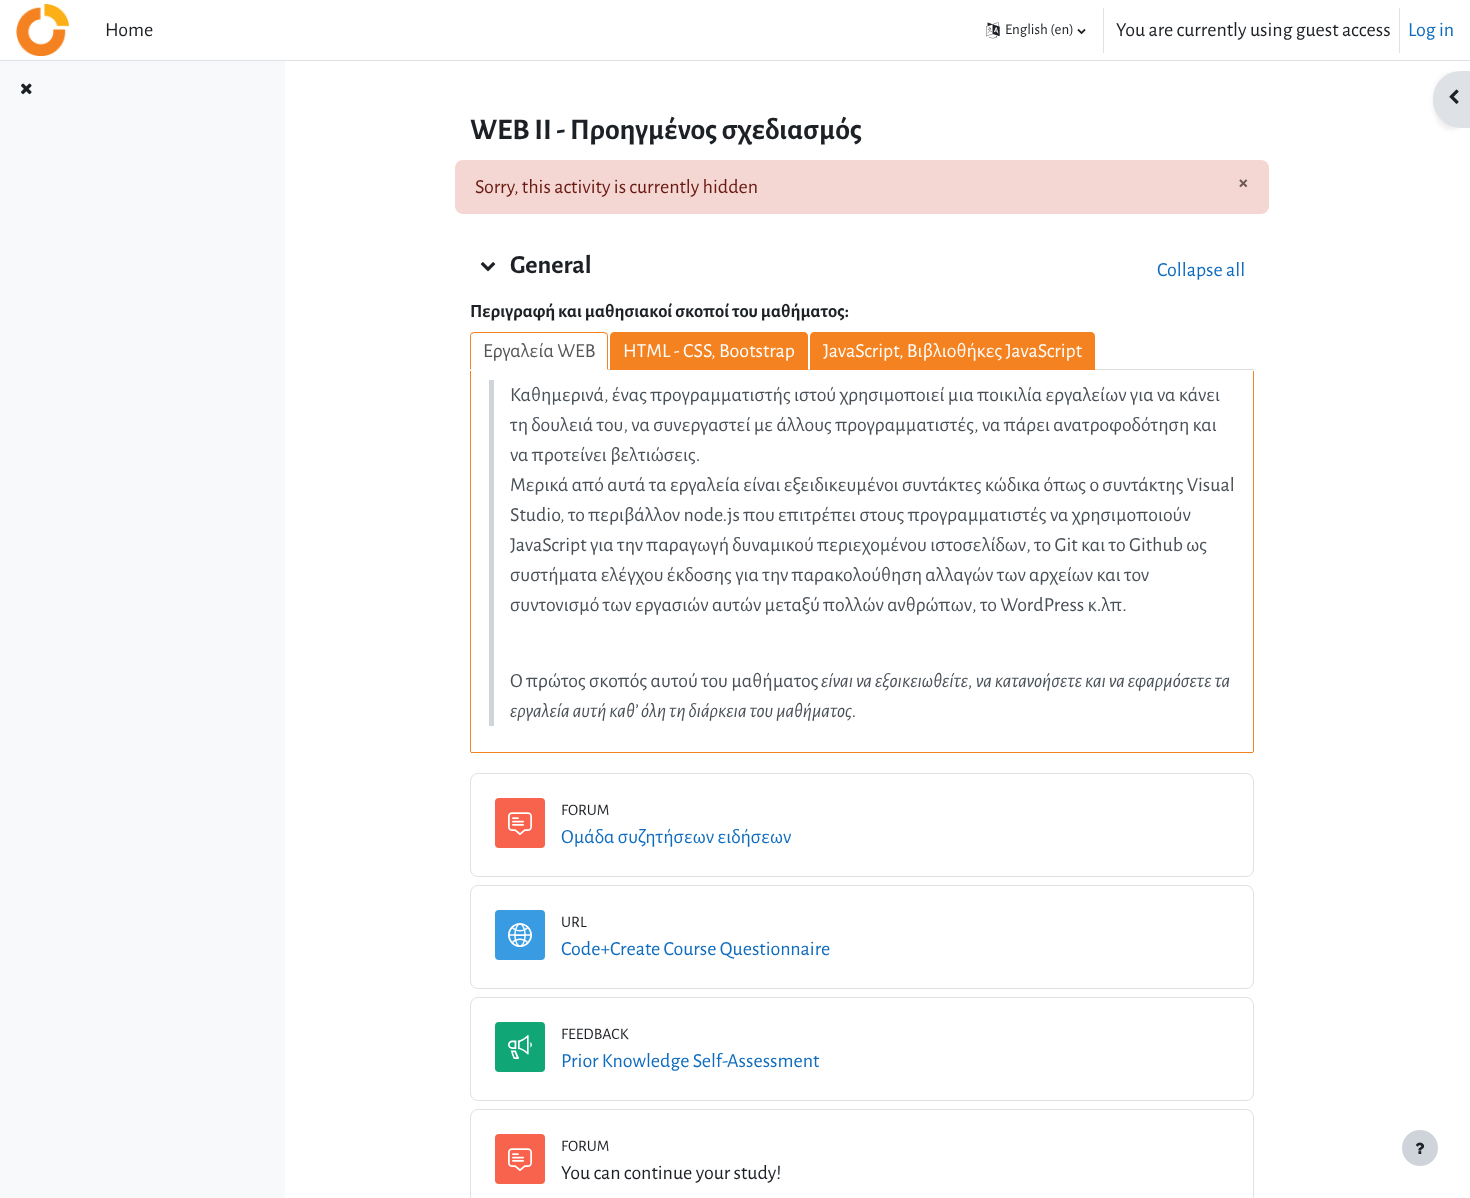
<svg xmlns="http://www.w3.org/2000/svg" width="1470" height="1198">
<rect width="100%" height="100%" fill="#fff"/>
<rect y="60" width="1470" height="1" fill="#dee2e6"/>
<image x="16" y="4" width="53" height="52" href="media/1.png"/>
<text x="105" y="36" style="font-family:Alegreya Sans;font-size:20px;fill:#1d2125">Home</text>
<image x="986" y="22" width="14" height="17" href="media/2.png"/>
<text x="1005" y="34" style="font-family:Alegreya Sans;font-size:15px;fill:#1d2125">English (en)</text>
<image x="1077" y="29" width="9" height="6" href="media/3.png"/>
<rect x="1103" y="8" width="1" height="45" fill="#dee2e6"/>
<text x="1116" y="36" style="font-family:Alegreya Sans;font-size:20px;fill:#1d2125">You are currently using guest access</text>
<rect x="1399" y="8" width="1" height="45" fill="#dee2e6"/>
<text x="1408" y="36" style="font-family:Alegreya Sans;font-size:20px;fill:#0f6cbf">Log in</text>
<rect y="61" width="285" height="1137" fill="#f8f9fa"/>
<image x="21" y="83" width="11" height="12" href="media/4.png"/>
<text x="470" y="139" style="font-family:Alegreya Sans;font-size:30px;font-weight:bold;fill:#1d2125">WEB II - Προηγμένος σχεδιασμός</text>
<rect x="1433" y="73" width="37" height="57" rx="28" fill="#00000012" filter="blur(2px)"/>
<path d="M1461 71h9v57h-9c-15.5 0-28-12.5-28-28v-1c0-15.5 12.5-28 28-28z" fill="#dee2e6"/>
<image x="1449" y="89" width="10" height="15" href="media/5.png"/>
<rect x="455" y="160" width="814" height="54" rx="8" fill="#f4d6d2"/>
<text x="475" y="193" style="font-family:Alegreya Sans;font-size:20px;fill:#691911">Sorry, this activity is currently hidden</text>
<text x="1238" y="189" style="font-family:Alegreya Sans;font-size:22px;font-weight:bold;fill:#6c5856">×</text>
<image x="480" y="262" width="16" height="10" href="media/6.png"/>
<text x="510" y="273" style="font-family:Alegreya Sans;font-size:26px;font-weight:bold;fill:#1d2125">General</text>
<text x="1157" y="276" style="font-family:Alegreya Sans;font-size:20px;fill:#0f6cbf">Collapse all</text>
<text x="470" y="317" style="font-family:Alegreya Sans;font-size:18.75px;font-weight:bold;fill:#1d2125">Περιγραφή και μαθησιακοί σκοποί του μαθήματος:</text>
<rect x="608" y="369" width="646" height="1" fill="#ddd"/>
<path d="M474 332l-3 1l1 1l2-1h130l2 1l1-1l-3-1z" fill="#f58220"/>
<path d="M608 370v-34c0-1-.5-2-1-3l-1 1c1 0 1 1 1 2v33z" fill="#f58220"/>
<path d="M470 370l1-1v-33c0-1 0-2 1-2l-1-1c-.5 1-1 2-1 3z" fill="#f58220"/>
<text x="483" y="357" style="font-family:Alegreya Sans;font-size:20px;fill:#555">Εργαλεία WEB</text>
<path d="M614 332h190c2 0 4 2 4 4v34h-198v-34c0-2 2-4 4-4z" fill="#f58220"/>
<text x="623" y="357" style="font-family:Alegreya Sans;font-size:20px;fill:#fff">HTML - CSS, Bootstrap</text>
<path d="M814 332h277c2 0 4 2 4 4v34h-285v-34c0-2 2-4 4-4z" fill="#f58220"/>
<text x="823" y="357" style="font-family:Alegreya Sans;font-size:20px;fill:#fff">JavaScript, Βιβλιοθήκες JavaScript</text>
<rect x="1253" y="371" width="1" height="381" fill="#f58220"/>
<rect x="471" y="752" width="782" height="1" fill="#f58220"/>
<rect x="470" y="371" width="1" height="381" fill="#f58220"/>
<rect x="489" y="380" width="5" height="346" fill="#ced4da"/>
<text x="510" y="401" style="font-family:Alegreya Sans;font-size:20px;fill:#495057">Καθημερινά, ένας προγραμματιστής ιστού χρησιμοποιεί μια ποικιλία εργαλείων για να κάνει</text>
<text x="510" y="431" style="font-family:Alegreya Sans;font-size:20px;fill:#495057">τη δουλειά του, να συνεργαστεί με άλλους προγραμματιστές, να πάρει ανατροφοδότηση και</text>
<text x="510" y="461" style="font-family:Alegreya Sans;font-size:20px;fill:#495057">να προτείνει βελτιώσεις.</text>
<text x="510" y="491" style="font-family:Alegreya Sans;font-size:20px;fill:#495057">Μερικά από αυτά τα εργαλεία είναι εξειδικευμένοι συντάκτες κώδικα όπως ο συντάκτης Visual</text>
<text x="510" y="521" style="font-family:Alegreya Sans;font-size:20px;fill:#495057">Studio, το περιβάλλον node.js που επιτρέπει στους προγραμματιστές να χρησιμοποιούν</text>
<text x="510" y="551" style="font-family:Alegreya Sans;font-size:20px;fill:#495057">JavaScript για την παραγωγή δυναμικού περιεχομένου ιστοσελίδων, το Git και το Github ως</text>
<text x="510" y="581" style="font-family:Alegreya Sans;font-size:20px;fill:#495057">συστήματα ελέγχου έκδοσης για την παρακολούθηση αλλαγών των αρχείων και τον</text>
<text x="510" y="611" style="font-family:Alegreya Sans;font-size:20px;fill:#495057">συντονισμό των εργασιών αυτών μεταξύ πολλών ανθρώπων, το WordPress κ.λπ.</text>
<text x="510" y="687" style="font-family:Alegreya Sans;font-size:20px;fill:#495057">Ο πρώτος σκοπός αυτού του μαθήματος</text>
<text x="821" y="687" style="font-family:Alegreya Sans;font-size:20px;font-style:italic;fill:#495057">είναι να εξοικειωθείτε, να κατανοήσετε και να εφαρμόσετε τα</text>
<text x="510" y="717" style="font-family:Alegreya Sans;font-size:20px;font-style:italic;fill:#495057">εργαλεία αυτή καθ’ όλη τη διάρκεια του μαθήματος.</text>
<rect x="470.5" y="773.5" width="783" height="103" rx="7.5" fill="none" stroke="#dee2e6"/>
<rect x="495" y="798" width="50" height="50" rx="4" fill="#f7634d"/>
<image x="508" y="812" width="24" height="23" href="media/7.png"/>
<text x="561" y="815" style="font-family:Alegreya Sans;font-size:16px;fill:#1d2125">FORUM</text>
<text x="561" y="843" style="font-family:Alegreya Sans;font-size:20px;fill:#0f6cbf">Ομάδα συζητήσεων ειδήσεων</text>
<rect x="470.5" y="885.5" width="783" height="103" rx="7.5" fill="none" stroke="#dee2e6"/>
<rect x="495" y="910" width="50" height="50" rx="4" fill="#399be2"/>
<image x="508" y="923" width="24" height="24" href="media/8.png"/>
<text x="561" y="927" style="font-family:Alegreya Sans;font-size:16px;fill:#1d2125">URL</text>
<text x="561" y="955" style="font-family:Alegreya Sans;font-size:20px;fill:#0f6cbf">Code+Create Course Questionnaire</text>
<rect x="470.5" y="997.5" width="783" height="103" rx="7.5" fill="none" stroke="#dee2e6"/>
<rect x="495" y="1022" width="50" height="50" rx="4" fill="#11a676"/>
<image x="508" y="1035" width="24" height="24" href="media/9.png"/>
<text x="561" y="1039" style="font-family:Alegreya Sans;font-size:16px;fill:#1d2125">FEEDBACK</text>
<text x="561" y="1067" style="font-family:Alegreya Sans;font-size:20px;fill:#0f6cbf">Prior Knowledge Self-Assessment</text>
<rect x="470.5" y="1109.5" width="783" height="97" rx="7.5" fill="none" stroke="#dee2e6"/>
<rect x="495" y="1134" width="50" height="50" rx="4" fill="#f7634d"/>
<image x="508" y="1148" width="24" height="23" href="media/7.png"/>
<text x="561" y="1151" style="font-family:Alegreya Sans;font-size:16px;fill:#1d2125">FORUM</text>
<text x="561" y="1179" style="font-family:Alegreya Sans;font-size:20px;fill:#1d2125">You can continue your study!</text>
<circle cx="1420" cy="1148" r="18" fill="#ced4da"/>
<image x="1415" y="1142" width="10" height="12" href="media/10.png"/>
</svg>
